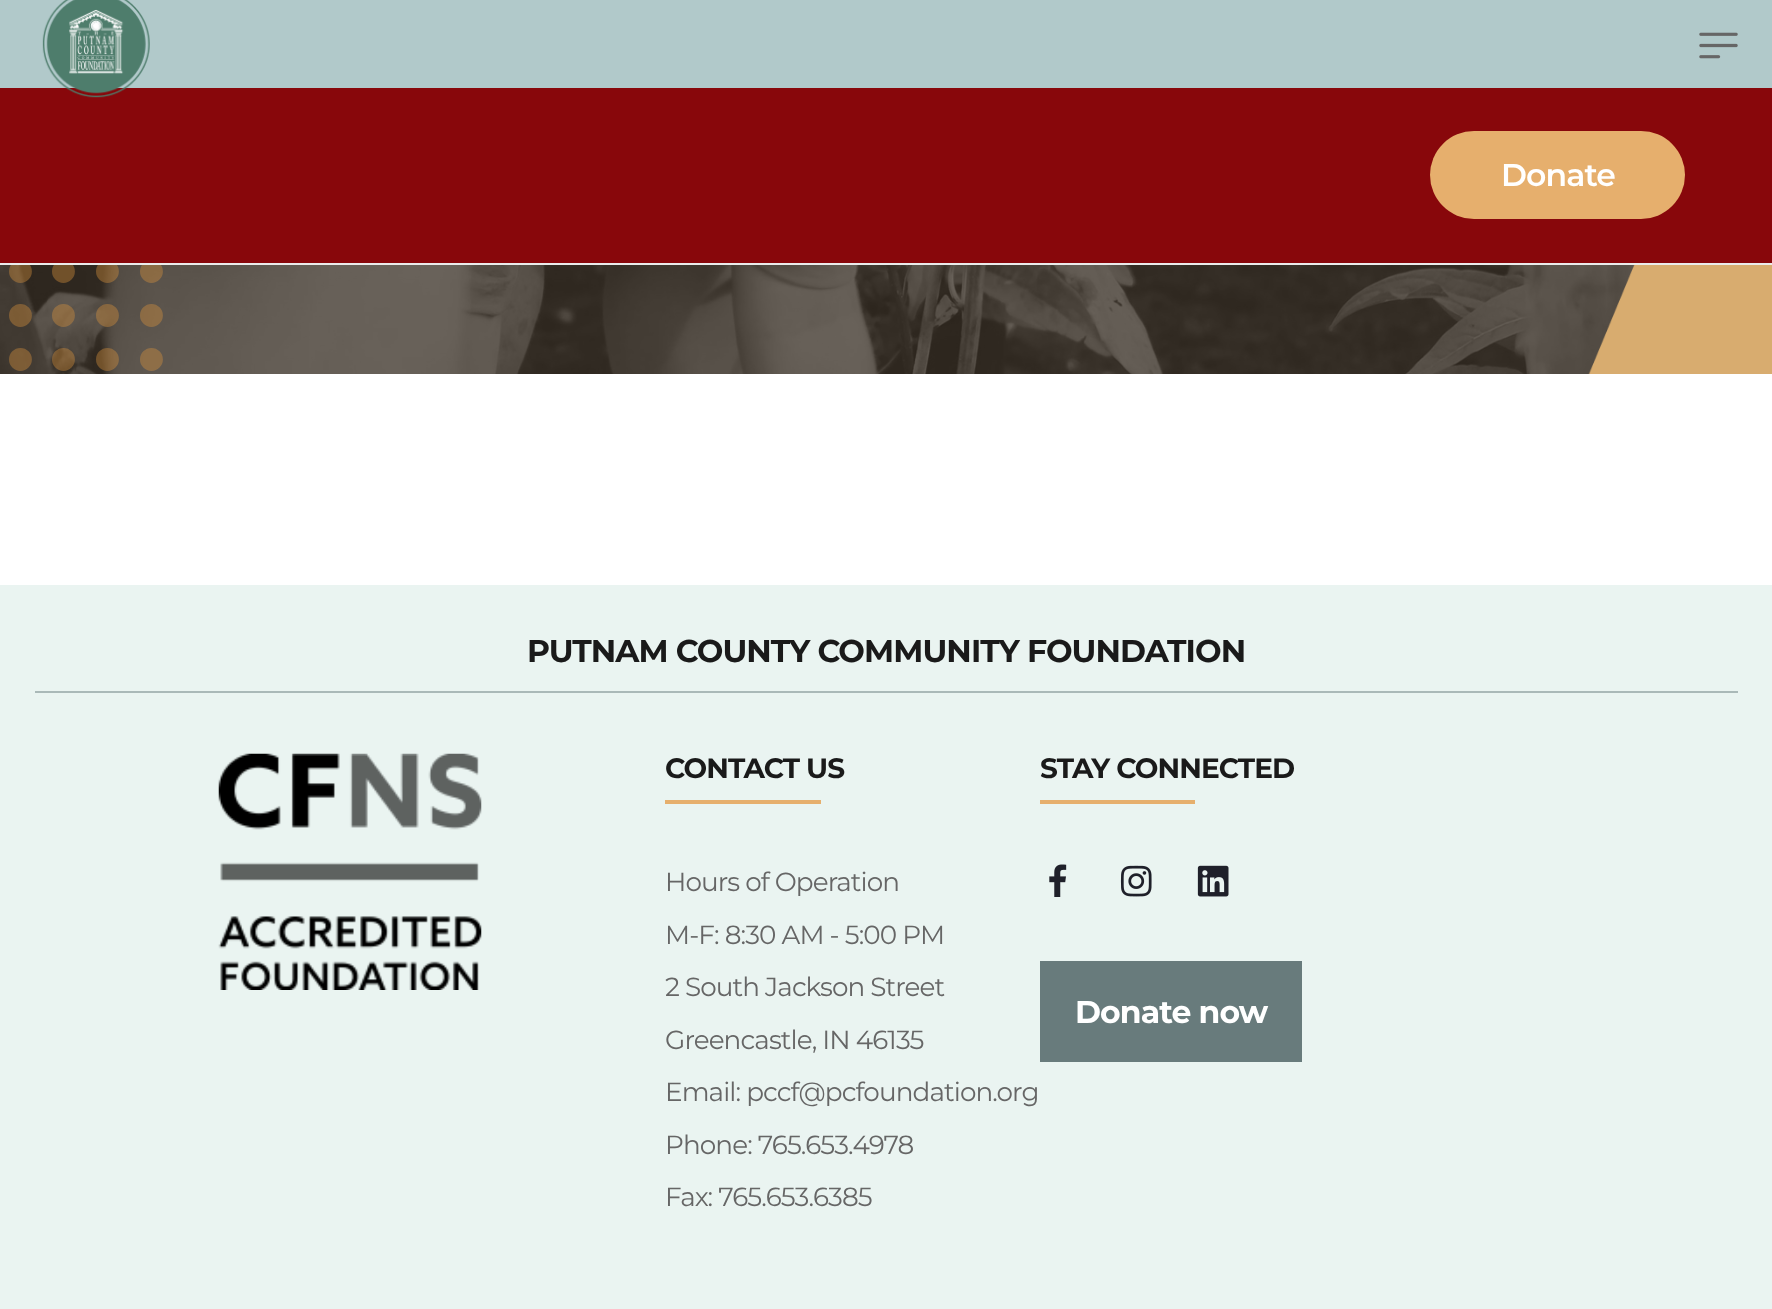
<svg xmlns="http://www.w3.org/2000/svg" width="1772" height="1309">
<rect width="100%" height="100%" fill="#fff"/>
<rect y="263" width="1772" height="2" fill="#ebebeb"/>
<rect width="1772" height="88" fill="#b1c9ca"/>
<rect y="88" width="1772" height="175" fill="#88070b"/>
<image x="42" y="0" width="108" height="98" href="media/1.png"/>
<image x="1699" y="32" width="39" height="27" href="media/2.png"/>
<rect x="1430" y="131" width="255" height="88" rx="44" fill="#e6af6d"/>
<text x="1501" y="186" style="font-family:Montserrat;font-size:31.5px;font-weight:600;letter-spacing:-0.9px;fill:#fff">Donate</text>
<image x="0" y="265" width="1635" height="109" href="media/3.png"/>
<image x="9" y="265" width="154" height="106" href="media/4.png"/>
<image x="1588" y="265" width="184" height="109" href="media/5.png"/>
<rect y="585" width="1772" height="724" fill="#eaf4f1"/>
<text x="527" y="662" style="font-family:Montserrat;font-size:31.5px;font-weight:bold;letter-spacing:-0.9px;fill:#1a1a1a">PUTNAM COUNTY COMMUNITY FOUNDATION</text>
<rect x="35" y="691" width="1703" height="2" fill="#aab9b8"/>
<image x="218" y="753" width="264" height="237" href="media/6.png"/>
<text x="665" y="778" style="font-family:Montserrat;font-size:28px;font-weight:bold;letter-spacing:-0.9px;fill:#1a1a1a">CONTACT US</text>
<rect x="665" y="800" width="156" height="4" fill="#e6af6d"/>
<text x="665" y="891" style="font-family:Montserrat;font-size:26.25px;letter-spacing:-0.9px;fill:#666">Hours of Operation</text>
<text x="665" y="944" style="font-family:Montserrat;font-size:26.25px;letter-spacing:-0.9px;fill:#666">M-F: 8:30 AM - 5:00 PM</text>
<text x="665" y="996" style="font-family:Montserrat;font-size:26.25px;letter-spacing:-0.9px;fill:#666">2 South Jackson Street</text>
<text x="665" y="1049" style="font-family:Montserrat;font-size:26.25px;letter-spacing:-0.9px;fill:#666">Greencastle, IN 46135</text>
<text x="665" y="1101" style="font-family:Montserrat;font-size:26.25px;letter-spacing:-0.9px;fill:#666">Email: pccf@pcfoundation.org</text>
<text x="665" y="1154" style="font-family:Montserrat;font-size:26.25px;letter-spacing:-0.9px;fill:#666">Phone: 765.653.4978</text>
<text x="665" y="1206" style="font-family:Montserrat;font-size:26.25px;letter-spacing:-0.9px;fill:#666">Fax: 765.653.6385</text>
<text x="1040" y="778" style="font-family:Montserrat;font-size:28px;font-weight:bold;letter-spacing:-0.9px;fill:#1a1a1a">STAY CONNECTED</text>
<rect x="1040" y="800" width="155" height="4" fill="#e6af6d"/>
<image x="1049" y="864" width="18" height="33" href="media/7.png"/>
<image x="1120" y="865" width="32" height="32" href="media/8.png"/>
<image x="1197" y="865" width="32" height="32" href="media/9.png"/>
<rect x="1040" y="961" width="262" height="101" fill="#687b7c"/>
<text x="1075" y="1023" style="font-family:Montserrat;font-size:31.5px;font-weight:bold;letter-spacing:-0.9px;fill:#fff">Donate now</text>
</svg>
